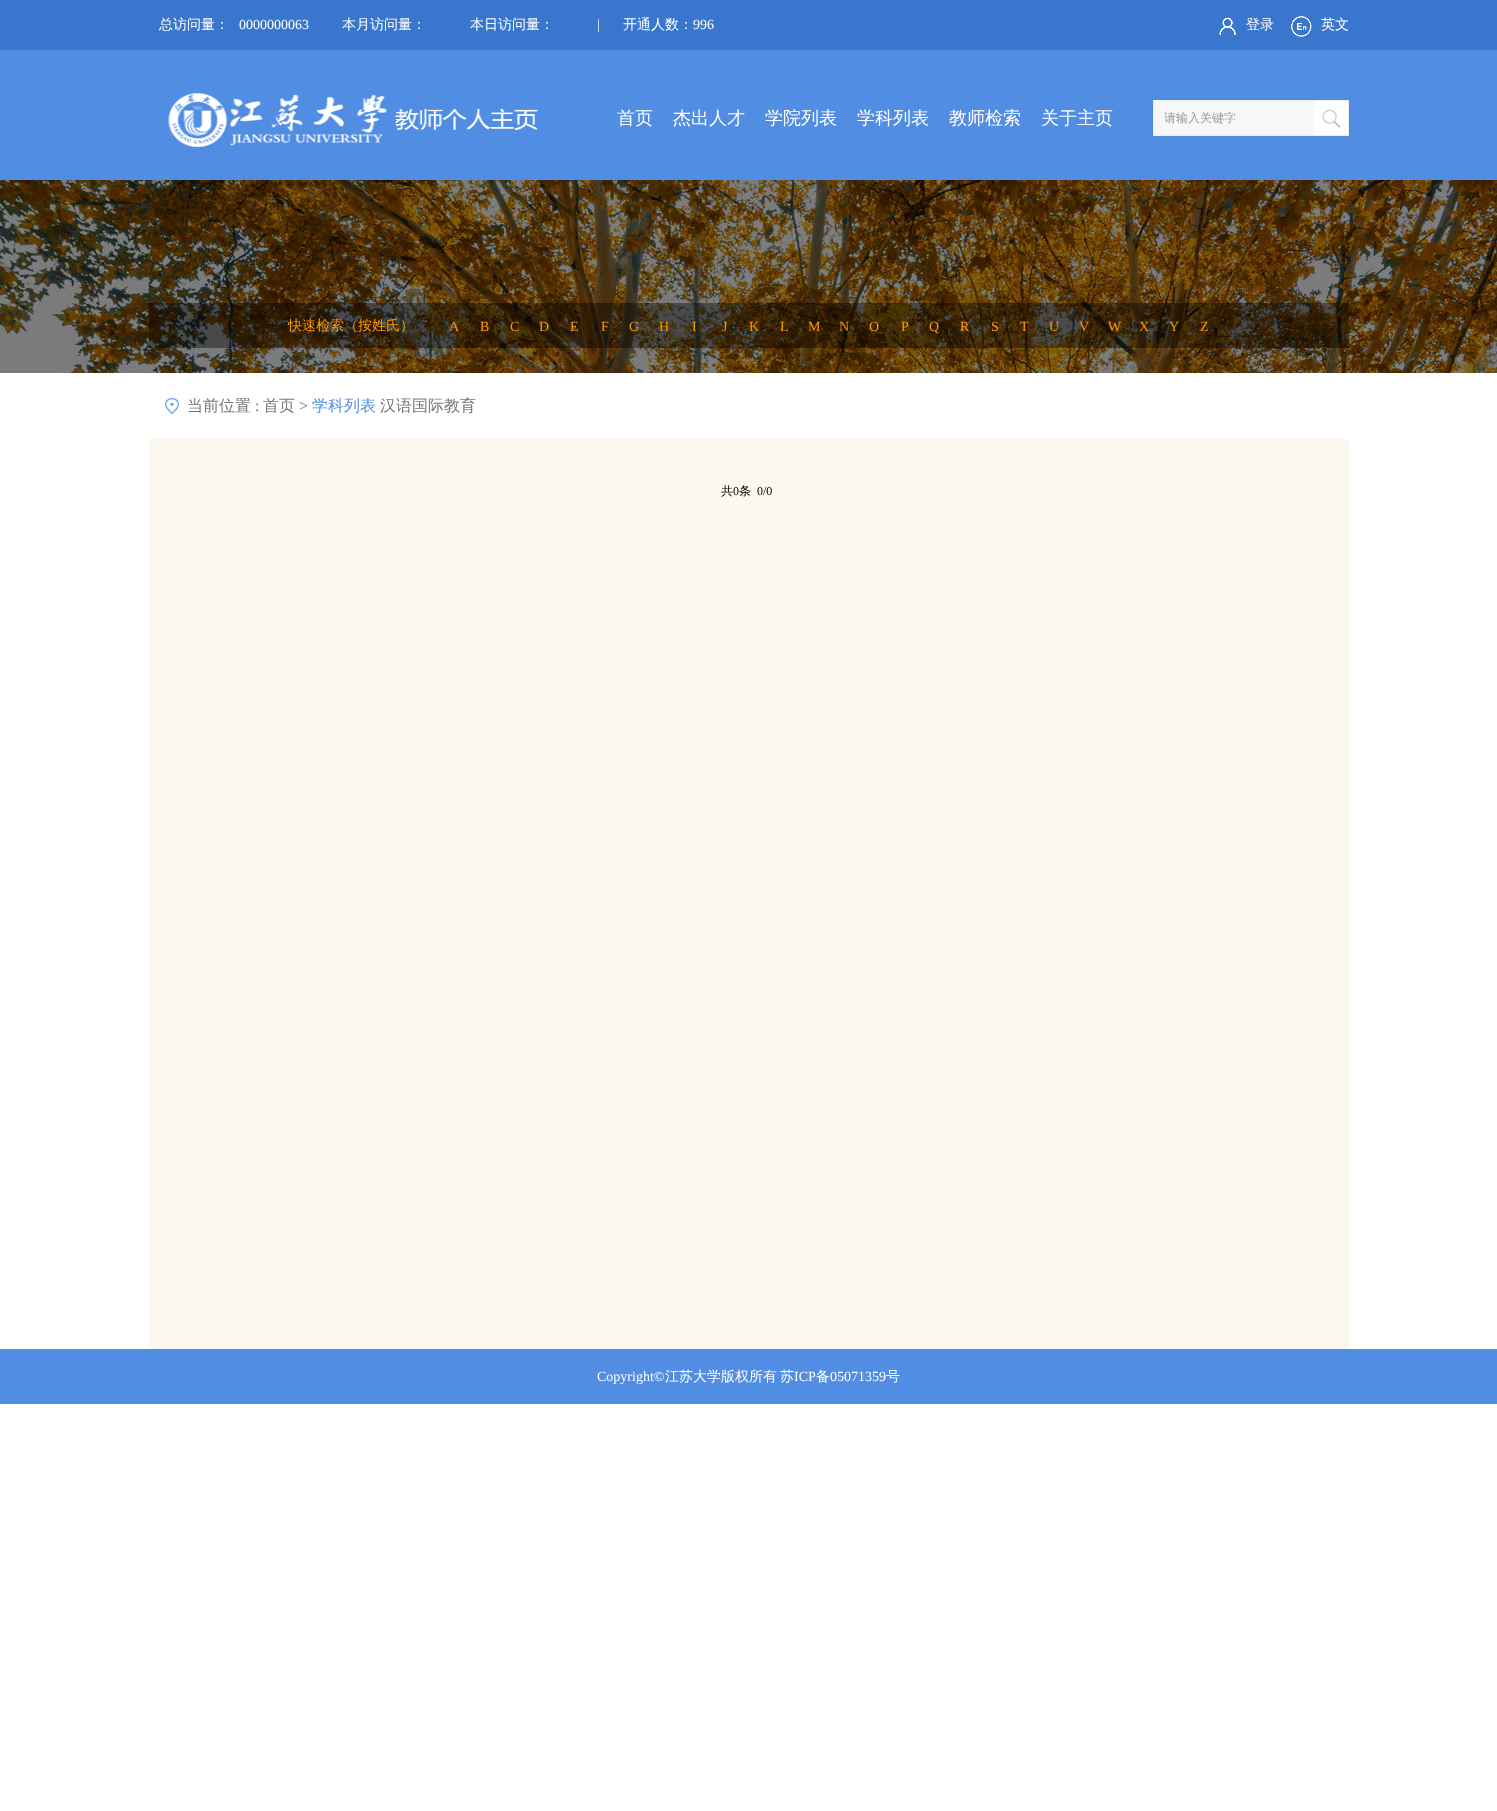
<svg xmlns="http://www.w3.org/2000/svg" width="1497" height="1811">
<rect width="100%" height="100%" fill="#fff"/>
<rect width="1497" height="50" fill="#3976ce"/>
<text x="159" y="29" style="font-family:WenQuanYi Zen Hei;font-size:14px;font-weight:500;fill:#fff">总访问量：</text>
<text x="239" y="29" style="font-family:Liberation Serif;font-size:14px;fill:#fff">0000000063</text>
<text x="342" y="29" style="font-family:WenQuanYi Zen Hei;font-size:14px;font-weight:500;fill:#fff">本月访问量：</text>
<text x="470" y="29" style="font-family:WenQuanYi Zen Hei;font-size:14px;font-weight:500;fill:#fff">本日访问量：</text>
<text x="597" y="29" style="font-family:Liberation Serif;font-size:14px;fill:#fff">|</text>
<text x="623" y="29" style="font-family:WenQuanYi Zen Hei;font-size:14px;font-weight:500;fill:#fff">开通人数：</text>
<text x="693" y="29" style="font-family:Liberation Serif;font-size:14px;fill:#fff">996</text>
<image x="1219" y="17" width="17" height="18" href="media/1.png"/>
<text x="1246" y="29" style="font-family:WenQuanYi Zen Hei;font-size:14px;font-weight:500;fill:#fff">登录</text>
<image x="1291" y="16" width="21" height="21" href="media/2.png"/>
<text x="1321" y="29" style="font-family:WenQuanYi Zen Hei;font-size:14px;font-weight:500;fill:#fff">英文</text>
<rect y="50" width="1497" height="130" fill="#518de3"/>
<image x="168" y="93" width="370" height="54" href="media/3.png"/>
<text x="617" y="124" style="font-family:WenQuanYi Zen Hei;font-size:18px;font-weight:500;fill:#fff">首页</text>
<text x="673" y="124" style="font-family:WenQuanYi Zen Hei;font-size:18px;font-weight:500;fill:#fff">杰出人才</text>
<text x="765" y="124" style="font-family:WenQuanYi Zen Hei;font-size:18px;font-weight:500;fill:#fff">学院列表</text>
<text x="857" y="124" style="font-family:WenQuanYi Zen Hei;font-size:18px;font-weight:500;fill:#fff">学科列表</text>
<text x="949" y="124" style="font-family:WenQuanYi Zen Hei;font-size:18px;font-weight:500;fill:#fff">教师检索</text>
<text x="1041" y="124" style="font-family:WenQuanYi Zen Hei;font-size:18px;font-weight:500;fill:#fff">关于主页</text>
<rect x="1154" y="101" width="160" height="34" fill="#f7f7f7"/>
<rect x="1153.5" y="100.5" width="195" height="35" fill="none" stroke="#eee"/>
<text x="1164" y="122" style="font-family:WenQuanYi Zen Hei;font-size:12px;font-weight:500;fill:#999">请输入关键字</text>
<image x="1314" y="101" width="34" height="34" href="media/4.png"/>
<image x="0" y="180" width="1497" height="193" href="media/5.png"/>
<rect x="149" y="303" width="1200" height="45" fill="#00000066"/>
<text x="288" y="330" style="font-family:WenQuanYi Zen Hei;font-size:14px;font-weight:500;fill:#f90">快速检索（按姓氏）</text>
<text x="449" y="331" style="font-family:Liberation Serif;font-size:14px;fill:#f90">A</text>
<text x="480" y="331" style="font-family:Liberation Serif;font-size:14px;fill:#f90">B</text>
<text x="510" y="331" style="font-family:Liberation Serif;font-size:14px;fill:#f90">C</text>
<text x="539" y="331" style="font-family:Liberation Serif;font-size:14px;fill:#f90">D</text>
<text x="570" y="331" style="font-family:Liberation Serif;font-size:14px;fill:#f90">E</text>
<text x="601" y="331" style="font-family:Liberation Serif;font-size:14px;fill:#f90">F</text>
<text x="629" y="331" style="font-family:Liberation Serif;font-size:14px;fill:#f90">G</text>
<text x="659" y="331" style="font-family:Liberation Serif;font-size:14px;fill:#f90">H</text>
<text x="692" y="331" style="font-family:Liberation Serif;font-size:14px;fill:#f90">I</text>
<text x="722" y="331" style="font-family:Liberation Serif;font-size:14px;fill:#f90">J</text>
<text x="749" y="331" style="font-family:Liberation Serif;font-size:14px;fill:#f90">K</text>
<text x="780" y="331" style="font-family:Liberation Serif;font-size:14px;fill:#f90">L</text>
<text x="808" y="331" style="font-family:Liberation Serif;font-size:14px;fill:#f90">M</text>
<text x="839" y="331" style="font-family:Liberation Serif;font-size:14px;fill:#f90">N</text>
<text x="869" y="331" style="font-family:Liberation Serif;font-size:14px;fill:#f90">O</text>
<text x="901" y="331" style="font-family:Liberation Serif;font-size:14px;fill:#f90">P</text>
<text x="929" y="331" style="font-family:Liberation Serif;font-size:14px;fill:#f90">Q</text>
<text x="960" y="331" style="font-family:Liberation Serif;font-size:14px;fill:#f90">R</text>
<text x="991" y="331" style="font-family:Liberation Serif;font-size:14px;fill:#f90">S</text>
<text x="1020" y="331" style="font-family:Liberation Serif;font-size:14px;fill:#f90">T</text>
<text x="1049" y="331" style="font-family:Liberation Serif;font-size:14px;fill:#f90">U</text>
<text x="1079" y="331" style="font-family:Liberation Serif;font-size:14px;fill:#f90">V</text>
<text x="1108" y="331" style="font-family:Liberation Serif;font-size:14px;fill:#f90">W</text>
<text x="1139" y="331" style="font-family:Liberation Serif;font-size:14px;fill:#f90">X</text>
<text x="1169" y="331" style="font-family:Liberation Serif;font-size:14px;fill:#f90">Y</text>
<text x="1200" y="331" style="font-family:Liberation Serif;font-size:14px;fill:#f90">Z</text>
<rect x="149" y="439" width="1200" height="910" fill="#fdf8ef"/>
<image x="165" y="398" width="14" height="16" href="media/6.png"/>
<text x="187" y="411" style="font-family:WenQuanYi Zen Hei;font-size:16px;font-weight:500;fill:#777">当前位置</text>
<text x="255" y="411" style="font-family:Liberation Serif;font-size:16px;fill:#777">:</text>
<text x="263" y="411" style="font-family:WenQuanYi Zen Hei;font-size:16px;font-weight:500;fill:#777">首页</text>
<text x="299" y="411" style="font-family:Liberation Serif;font-size:16px;fill:#777">&gt;</text>
<text x="312" y="411" style="font-family:WenQuanYi Zen Hei;font-size:16px;font-weight:500;fill:#518de3">学科列表</text>
<text x="380" y="411" style="font-family:WenQuanYi Zen Hei;font-size:16px;font-weight:500;fill:#777">汉语国际教育</text>
<text x="721" y="495" style="font-family:WenQuanYi Zen Hei;font-size:12px;font-weight:500;fill:#000">共</text>
<text x="733" y="495" style="font-family:Liberation Serif;font-size:12px;fill:#000">0</text>
<text x="739" y="495" style="font-family:WenQuanYi Zen Hei;font-size:12px;font-weight:500;fill:#000">条</text>
<text x="757" y="495" style="font-family:Liberation Serif;font-size:12px;fill:#000">0/0</text>
<rect y="1349" width="1497" height="55" fill="#518de3"/>
<text x="597" y="1381" style="font-family:Liberation Serif;font-size:14px;fill:#fff">Copyright©</text>
<text x="665" y="1381" style="font-family:WenQuanYi Zen Hei;font-size:14px;font-weight:500;fill:#fff">江苏大学版权所有</text>
<text x="780" y="1381" style="font-family:WenQuanYi Zen Hei;font-size:14px;font-weight:500;fill:#fff">苏</text>
<text x="794" y="1381" style="font-family:Liberation Serif;font-size:14px;fill:#fff">ICP</text>
<text x="816" y="1381" style="font-family:WenQuanYi Zen Hei;font-size:14px;font-weight:500;fill:#fff">备</text>
<text x="830" y="1381" style="font-family:Liberation Serif;font-size:14px;fill:#fff">05071359</text>
<text x="886" y="1381" style="font-family:WenQuanYi Zen Hei;font-size:14px;font-weight:500;fill:#fff">号</text>
</svg>
